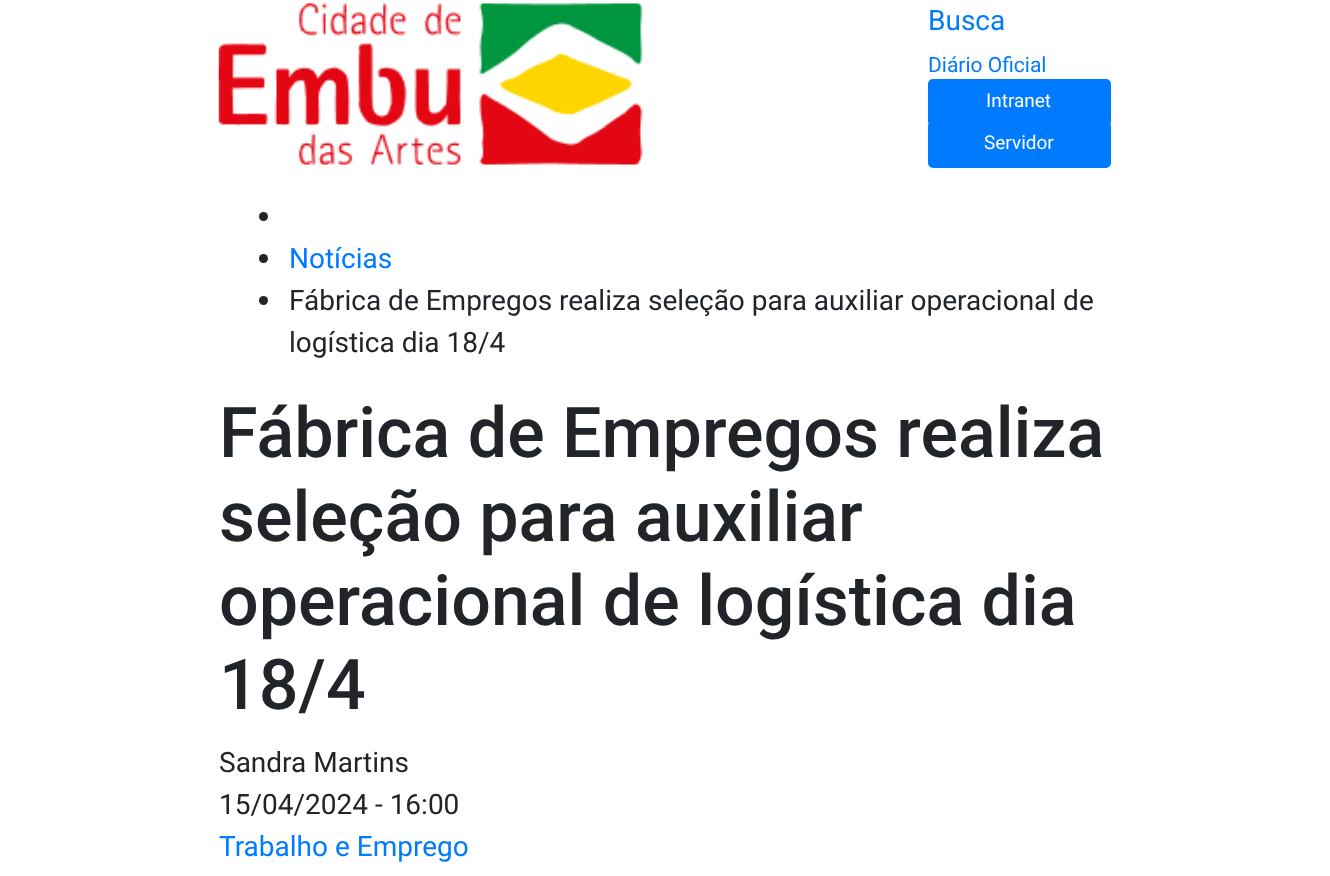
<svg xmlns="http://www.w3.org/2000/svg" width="1330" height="876">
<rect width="100%" height="100%" fill="#fff"/>
<image x="218" y="3" width="425" height="162" href="media/1.png"/>
<text x="928" y="30" style="font-family:Roboto;font-size:28px;fill:#007bff">Busca</text>
<text x="928" y="72" style="font-family:Roboto;font-size:21px;fill:#007bff">Diário Oficial</text>
<rect x="929" y="80" width="181" height="45" rx="4" fill="#007bff" stroke="#007bff" stroke-width="2"/>
<text x="986" y="107" style="font-family:Roboto;font-size:19px;fill:#fff">Intranet</text>
<rect x="929" y="122" width="181" height="45" rx="4" fill="#007bff" stroke="#007bff" stroke-width="2"/>
<text x="984" y="149" style="font-family:Roboto;font-size:19px;fill:#fff">Servidor</text>
<circle cx="263.5" cy="216.5" r="4.5" fill="#212529"/>
<circle cx="263.5" cy="258.5" r="4.5" fill="#212529"/>
<text x="289" y="268" style="font-family:Roboto;font-size:28px;fill:#007bff">Notícias</text>
<circle cx="263.5" cy="300.5" r="4.5" fill="#212529"/>
<text x="289" y="310" style="font-family:Roboto;font-size:28px;fill:#212529">Fábrica de Empregos realiza seleção para auxiliar operacional de</text>
<text x="289" y="352" style="font-family:Roboto;font-size:28px;fill:#212529">logística dia 18/4</text>
<text x="219" y="457" style="font-family:Roboto;font-size:70px;font-weight:500;fill:#212529">Fábrica de Empregos realiza</text>
<text x="219" y="541" style="font-family:Roboto;font-size:70px;font-weight:500;fill:#212529">seleção para auxiliar</text>
<text x="219" y="625" style="font-family:Roboto;font-size:70px;font-weight:500;fill:#212529">operacional de logística dia</text>
<text x="219" y="709" style="font-family:Roboto;font-size:70px;font-weight:500;fill:#212529">18/4</text>
<text x="219" y="772" style="font-family:Roboto;font-size:28px;fill:#212529">Sandra Martins</text>
<text x="219" y="814" style="font-family:Roboto;font-size:28px;fill:#212529">15/04/2024 - 16:00</text>
<text x="219" y="856" style="font-family:Roboto;font-size:28px;fill:#007bff">Trabalho e Emprego</text>
</svg>
